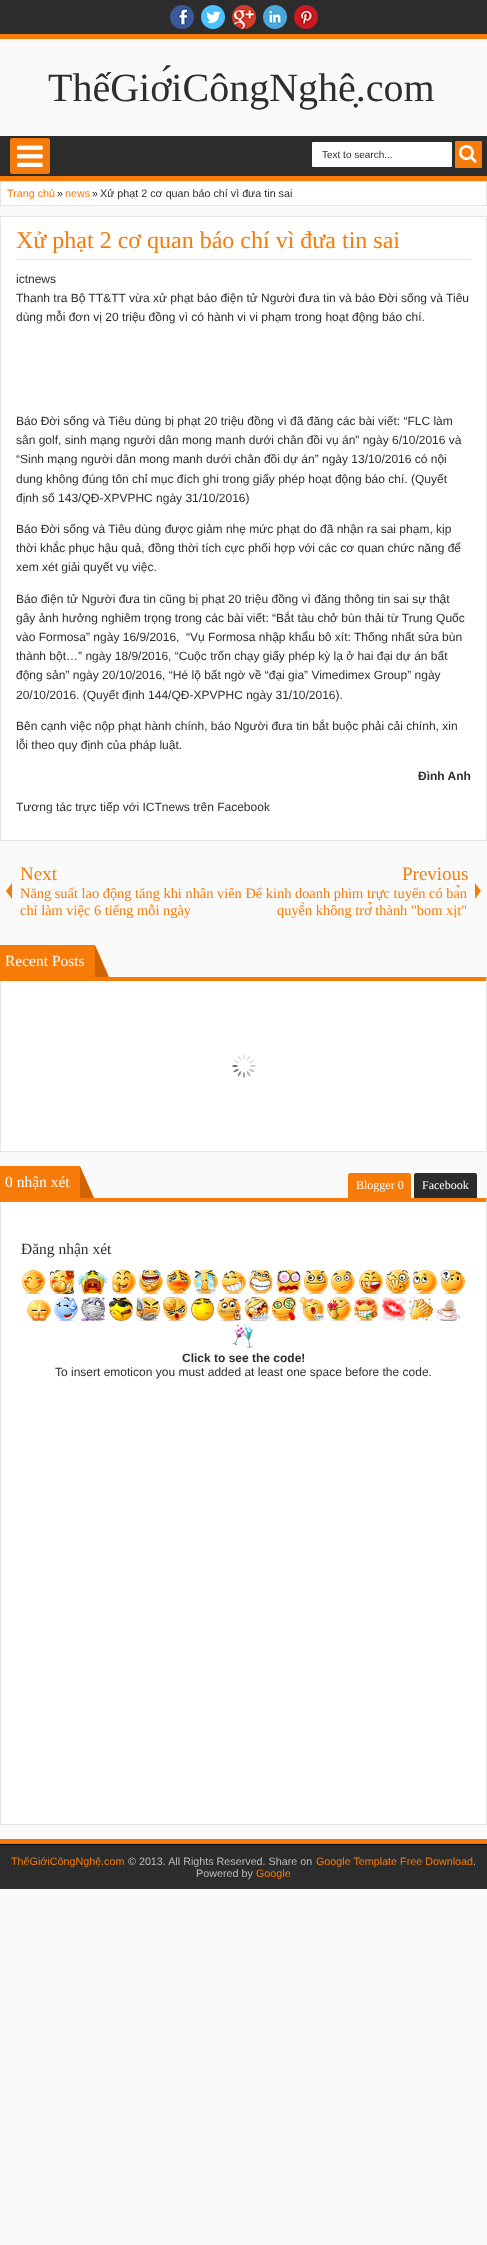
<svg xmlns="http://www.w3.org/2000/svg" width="487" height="2245">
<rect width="100%" height="100%" fill="#fafafa"/>
<rect width="487" height="34" fill="#2c2c2c"/>
<rect y="34" width="487" height="5" fill="#f77b09"/>
<image x="170" y="5" width="24" height="24" href="media/1.png"/>
<image x="201" y="5" width="24" height="24" href="media/2.png"/>
<image x="232" y="5" width="24" height="24" href="media/3.png"/>
<image x="263" y="5" width="24" height="24" href="media/4.png"/>
<image x="294" y="5" width="24" height="24" href="media/5.png"/>
<text x="48" y="101" style="font-family:Liberation Serif;font-size:40px;fill:#2e2e2e">ThếGiớiCôngNghệ.com</text>
<rect y="136" width="487" height="40" fill="#2c2c2c"/>
<rect y="176" width="487" height="5" fill="#f77b09"/>
<rect x="10" y="138" width="40" height="36" rx="2" fill="#f77b09"/>
<image x="17" y="145" width="26" height="22" href="media/6.png"/>
<rect x="312" y="142" width="140" height="25" rx="1" fill="#fff"/>
<text x="322" y="158" style="font-family:Liberation Sans;font-size:10px;fill:#2e2e2e">Text to search...</text>
<rect x="455" y="141" width="27" height="27" rx="1" fill="#f77b09"/>
<image x="459" y="145" width="18" height="18" href="media/7.png"/>
<rect x="0.5" y="181.5" width="486" height="24" fill="#fff" stroke="#e6e4e4"/>
<text x="7" y="197" style="font-family:Liberation Sans;font-size:10.75px;fill:#f77b09">Trang chủ</text>
<text x="57" y="197" style="font-family:Liberation Sans;font-size:10.75px;fill:#2e2e2e">»</text>
<text x="65" y="197" style="font-family:Liberation Sans;font-size:10.75px;fill:#f77b09">news</text>
<text x="92" y="197" style="font-family:Liberation Sans;font-size:10.75px;fill:#2e2e2e">»</text>
<text x="100" y="197" style="font-family:Liberation Sans;font-size:10.75px;fill:#2e2e2e">Xử phạt 2 cơ quan báo chí vì đưa tin sai</text>
<rect x="0.5" y="216.5" width="486" height="624" fill="#fff" stroke="#e6e4e4"/>
<rect x="16" y="259" width="455" height="1" fill="#e6e4e4"/>
<text x="16" y="248" style="font-family:Liberation Serif;font-size:24px;fill:#f77b09">Xử phạt 2 cơ quan báo chí vì đưa tin sai</text>
<text x="16" y="283" style="font-family:Liberation Sans;font-size:12px;fill:#2e2e2e">ictnews</text>
<text x="16" y="302" style="font-family:Liberation Sans;font-size:12px;fill:#2e2e2e">Thanh tra Bộ TT&amp;TT vừa xử phạt báo điện tử Người đưa tin và báo Đời sống và Tiêu</text>
<text x="16" y="321" style="font-family:Liberation Sans;font-size:12px;fill:#2e2e2e">dùng mỗi đơn vị 20 triệu đồng vì có hành vi vi phạm trong hoạt động báo chí.</text>
<text x="16" y="425" style="font-family:Liberation Sans;font-size:12px;fill:#2e2e2e">Báo Đời sống và Tiêu dùng bị phạt 20 triệu đồng vì đã đăng các bài viết: “FLC làm</text>
<text x="16" y="444" style="font-family:Liberation Sans;font-size:12px;fill:#2e2e2e">sân golf, sinh mạng người dân mong manh dưới chân đồi vụ án” ngày 6/10/2016 và</text>
<text x="16" y="463" style="font-family:Liberation Sans;font-size:12px;fill:#2e2e2e">“Sinh mạng người dân mong manh dưới chân đồi dự án” ngày 13/10/2016 có nội</text>
<text x="16" y="483" style="font-family:Liberation Sans;font-size:12px;fill:#2e2e2e">dung không đúng tôn chỉ mục đích ghi trong giấy phép hoạt động báo chí. (Quyết</text>
<text x="16" y="502" style="font-family:Liberation Sans;font-size:12px;fill:#2e2e2e">định số 143/QĐ-XPVPHC ngày 31/10/2016)</text>
<text x="16" y="533" style="font-family:Liberation Sans;font-size:12px;fill:#2e2e2e">Báo Đời sống và Tiêu dùng được giảm nhẹ mức phạt do đã nhận ra sai phạm, kịp</text>
<text x="16" y="552" style="font-family:Liberation Sans;font-size:12px;fill:#2e2e2e">thời khắc phục hậu quả, đồng thời tích cực phối hợp với các cơ quan chức năng để</text>
<text x="16" y="571" style="font-family:Liberation Sans;font-size:12px;fill:#2e2e2e">xem xét giải quyết vụ việc.</text>
<text x="16" y="603" style="font-family:Liberation Sans;font-size:12px;fill:#2e2e2e">Báo điện tử Người đưa tin cũng bị phạt 20 triệu đồng vì đăng thông tin sai sự thật</text>
<text x="16" y="622" style="font-family:Liberation Sans;font-size:12px;fill:#2e2e2e">gây ảnh hưởng nghiêm trọng trong các bài viết: “Bắt tàu chở bùn thải từ Trung Quốc</text>
<text x="16" y="641" style="font-family:Liberation Sans;font-size:12px;fill:#2e2e2e" xml:space="preserve">vào Formosa” ngày 16/9/2016,  “Vụ Formosa nhập khẩu bô xít: Thống nhất sửa bùn</text>
<text x="16" y="660" style="font-family:Liberation Sans;font-size:12px;fill:#2e2e2e">thành bột…” ngày 18/9/2016, “Cuộc trốn chạy giấy phép kỳ lạ ở hai đại dự án bất</text>
<text x="16" y="679" style="font-family:Liberation Sans;font-size:12px;fill:#2e2e2e">động sản” ngày 20/10/2016, “Hé lộ bất ngờ về “đại gia” Vimedimex Group” ngày</text>
<text x="16" y="699" style="font-family:Liberation Sans;font-size:12px;fill:#2e2e2e">20/10/2016. (Quyết định 144/QĐ-XPVPHC ngày 31/10/2016).</text>
<text x="16" y="730" style="font-family:Liberation Sans;font-size:12px;fill:#2e2e2e">Bên cạnh việc nộp phạt hành chính, báo Người đưa tin bắt buộc phải cải chính, xin</text>
<text x="16" y="749" style="font-family:Liberation Sans;font-size:12px;fill:#2e2e2e">lỗi theo quy định của pháp luật.</text>
<text x="418" y="780" style="font-family:Liberation Sans;font-size:12px;font-weight:bold;fill:#2e2e2e">Đình Anh</text>
<text x="16" y="811" style="font-family:Liberation Sans;font-size:12px;fill:#2e2e2e">Tương tác trực tiếp với ICTnews trên Facebook</text>
<text x="20" y="880" style="font-family:Liberation Serif;font-size:19px;fill:#f77b09">Next</text>
<path d="M12 883v16l-6-8z" fill="#f77b09"/>
<text x="20" y="898" style="font-family:Liberation Serif;font-size:14.4px;fill:#f77b09">Năng suất lao động tăng khi nhân viên Để kinh doanh phim trực tuyến có bản</text>
<text x="20" y="915" style="font-family:Liberation Serif;font-size:14.4px;fill:#f77b09">chỉ làm việc 6 tiếng mỗi ngày</text>
<text x="402" y="880" style="font-family:Liberation Serif;font-size:19px;fill:#f77b09">Previous</text>
<path d="M475 899v-16l6 8z" fill="#f77b09"/>
<text x="277" y="915" style="font-family:Liberation Serif;font-size:14.4px;fill:#f77b09">quyền không trở thành "bom xịt"</text>
<path d="M0 977h487l-1 4h-485z" fill="#f77b09"/>
<path d="M487 977v175l-1-1v-170z" fill="#e6e4e4"/>
<rect y="1151" width="487" height="1" fill="#e6e4e4"/>
<path d="M0 1152v-175l1 4v170z" fill="#e6e4e4"/>
<rect y="945" width="95" height="36" fill="#f77b09"/>
<text x="5" y="966" style="font-family:Liberation Serif;font-size:15.5px;fill:#fff">Recent Posts</text>
<path d="M95 977v-32l14 32z" fill="#d16400"/>
<rect x="1" y="981" width="485" height="170" fill="#fff"/>
<image x="232" y="1054" width="24" height="24" href="media/8.png"/>
<path d="M0 1198h487l-1 4h-485z" fill="#f77b09"/>
<path d="M487 1198v627l-1-1v-622z" fill="#e6e4e4"/>
<rect y="1824" width="487" height="1" fill="#e6e4e4"/>
<path d="M0 1825v-627l1 4v622z" fill="#e6e4e4"/>
<rect y="1166" width="80" height="36" fill="#f77b09"/>
<text x="5" y="1187" style="font-family:Liberation Serif;font-size:15.5px;fill:#fff">0 nhận xét</text>
<path d="M80 1198v-32l14 32z" fill="#d16400"/>
<path d="M350 1173h59c1 0 2 1 2 2v23h-63v-23c0-1 1-2 2-2z" fill="#f77b09"/>
<text x="356" y="1189" style="font-family:Liberation Serif;font-size:12px;fill:#fff">Blogger 0</text>
<path d="M416 1173h59c1 0 2 1 2 2v23h-63v-23c0-1 1-2 2-2z" fill="#2c2c2c"/>
<text x="422" y="1189" style="font-family:Liberation Serif;font-size:12px;fill:#fff">Facebook</text>
<rect x="1" y="1202" width="485" height="622" fill="#fff"/>
<text x="21" y="1254" style="font-family:Liberation Serif;font-size:15.5px;fill:#2e2e2e">Đăng nhận xét</text>
<image x="22" y="1270" width="24" height="24" href="media/9.png"/>
<image x="50" y="1270" width="24" height="24" href="media/10.png"/>
<image x="77" y="1270" width="31" height="24" href="media/11.png"/>
<image x="112" y="1270" width="24" height="24" href="media/12.png"/>
<image x="139" y="1270" width="24" height="24" href="media/13.png"/>
<image x="166" y="1270" width="25" height="24" href="media/14.png"/>
<image x="194" y="1270" width="24" height="24" href="media/15.png"/>
<image x="222" y="1270" width="24" height="24" href="media/16.png"/>
<image x="249" y="1270" width="24" height="24" href="media/17.png"/>
<image x="277" y="1270" width="24" height="24" href="media/18.png"/>
<image x="304" y="1270" width="24" height="24" href="media/19.png"/>
<image x="331" y="1270" width="24" height="24" href="media/20.png"/>
<image x="359" y="1270" width="24" height="24" href="media/21.png"/>
<image x="386" y="1270" width="24" height="24" href="media/22.png"/>
<image x="413" y="1270" width="24" height="24" href="media/23.png"/>
<image x="441" y="1270" width="24" height="24" href="media/24.png"/>
<image x="27" y="1299" width="24" height="22" href="media/25.png"/>
<image x="54" y="1297" width="24" height="24" href="media/26.png"/>
<image x="81" y="1297" width="24" height="24" href="media/27.png"/>
<image x="109" y="1297" width="24" height="24" href="media/28.png"/>
<image x="136" y="1297" width="24" height="24" href="media/29.png"/>
<image x="163" y="1297" width="24" height="24" href="media/30.png"/>
<image x="191" y="1297" width="23" height="24" href="media/31.png"/>
<image x="217" y="1297" width="24" height="24" href="media/32.png"/>
<image x="245" y="1297" width="24" height="24" href="media/33.png"/>
<image x="272" y="1297" width="24" height="24" href="media/34.png"/>
<image x="300" y="1297" width="24" height="24" href="media/35.png"/>
<image x="327" y="1297" width="24" height="24" href="media/36.png"/>
<image x="354" y="1297" width="24" height="24" href="media/37.png"/>
<image x="382" y="1297" width="24" height="24" href="media/38.png"/>
<image x="409" y="1297" width="24" height="24" href="media/39.png"/>
<image x="436" y="1299" width="24" height="22" href="media/40.png"/>
<image x="232" y="1324" width="23" height="24" href="media/41.png"/>
<text x="182" y="1362" style="font-family:Liberation Sans;font-size:12px;font-weight:bold;fill:#2e2e2e">Click to see the code!</text>
<text x="55" y="1376" style="font-family:Liberation Sans;font-size:12px;fill:#2e2e2e">To insert emoticon you must added at least one space before the code.</text>
<rect y="1839" width="487" height="5" fill="#f77b09"/>
<rect y="1845" width="487" height="44" fill="#2c2c2c"/>
<rect y="1844" width="487" height="1" fill="#000"/>
<text x="11" y="1865" style="font-family:Liberation Sans;font-size:10.75px;fill:#f77b09">ThếGiớiCôngNghệ.com</text>
<text x="128" y="1865" style="font-family:Liberation Sans;font-size:10.75px;fill:#bbb">© 2013. All Rights Reserved. Share on</text>
<text x="316" y="1865" style="font-family:Liberation Sans;font-size:10.75px;fill:#f77b09">Google Template Free Download</text>
<text x="473" y="1865" style="font-family:Liberation Sans;font-size:10.75px;fill:#bbb">.</text>
<text x="196" y="1877" style="font-family:Liberation Sans;font-size:10.75px;fill:#bbb">Powered by</text>
<text x="256" y="1877" style="font-family:Liberation Sans;font-size:10.75px;fill:#f77b09">Google</text>
</svg>
